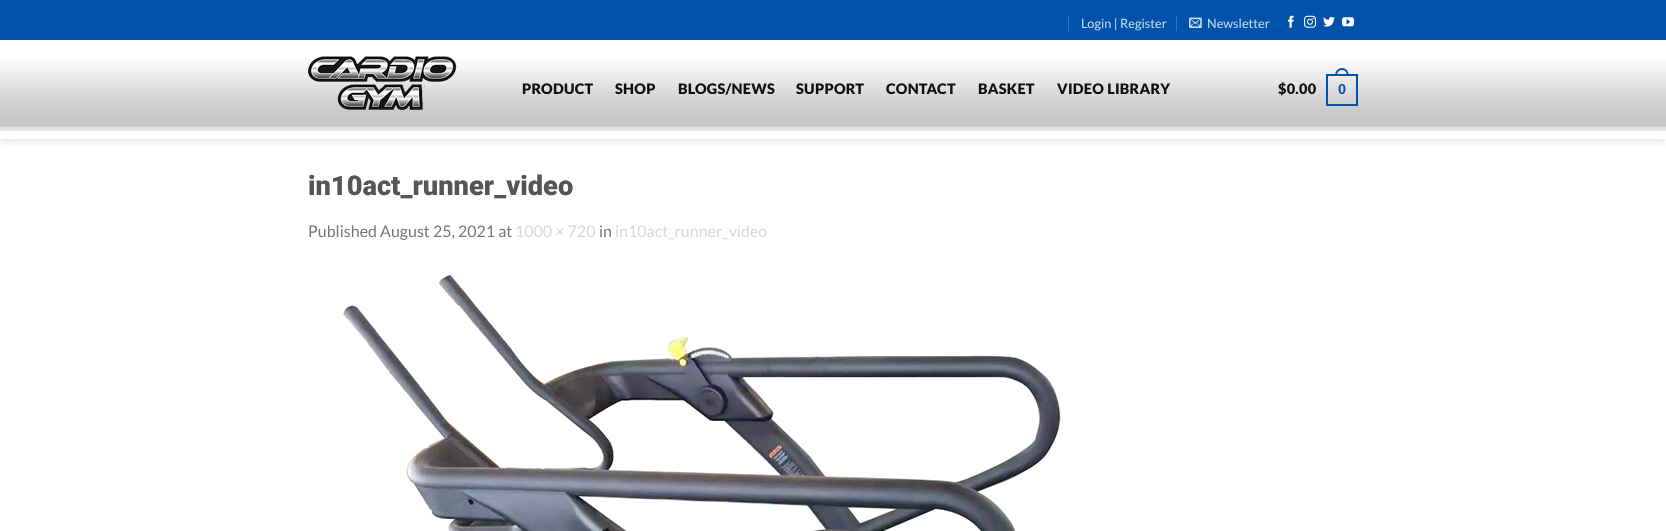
<svg xmlns="http://www.w3.org/2000/svg" width="1666" height="531">
<defs>
<clipPath id="clip1"><rect x="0" y="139" width="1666" height="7"/></clipPath>
</defs>
<rect width="100%" height="100%" fill="#fff"/>
<g clip-path="url(#clip1)">
<rect x="1" y="1" width="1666" height="139" fill="#00000026" filter="blur(5px)"/>
</g>
<rect width="1666" height="40" fill="#0052ab"/>
<rect x="1068" y="16" width="1" height="15" fill="#3375bc"/>
<text x="1081" y="28" style="font-family:Lato;font-size:12.75px;fill:#ccdcee">Login | Register</text>
<rect x="1176" y="16" width="1" height="15" fill="#3375bc"/>
<image x="1189" y="17" width="13" height="11" href="media/1.png"/>
<text x="1207" y="28" style="font-family:Lato;font-size:12.75px;fill:#ccdcee">Newsletter</text>
<image x="1288" y="15" width="6" height="13" href="media/2.png"/>
<image x="1304" y="15" width="12" height="13" href="media/3.png"/>
<image x="1323" y="16" width="12" height="11" href="media/4.png"/>
<image x="1342" y="17" width="12" height="10" href="media/5.png"/>
<image x="0" y="59" width="1666" height="72" href="media/6.png"/>
<image x="308" y="56" width="149" height="54" href="media/7.png"/>
<text x="522" y="94" style="font-family:Lato;font-size:14.5px;font-weight:900;letter-spacing:0.25px;fill:#0f0f0f">PRODUCT</text>
<text x="615" y="94" style="font-family:Lato;font-size:14.5px;font-weight:900;letter-spacing:0.25px;fill:#0f0f0f">SHOP</text>
<text x="678" y="94" style="font-family:Lato;font-size:14.5px;font-weight:900;letter-spacing:0.25px;fill:#0f0f0f">BLOGS/NEWS</text>
<text x="796" y="94" style="font-family:Lato;font-size:14.5px;font-weight:900;letter-spacing:0.25px;fill:#0f0f0f">SUPPORT</text>
<text x="886" y="94" style="font-family:Lato;font-size:14.5px;font-weight:900;letter-spacing:0.25px;fill:#0f0f0f">CONTACT</text>
<text x="978" y="94" style="font-family:Lato;font-size:14.5px;font-weight:900;letter-spacing:0.25px;fill:#0f0f0f">BASKET</text>
<text x="1057" y="94" style="font-family:Lato;font-size:14.5px;font-weight:900;letter-spacing:0.25px;fill:#0f0f0f">VIDEO LIBRARY</text>
<text x="1278" y="94" style="font-family:Lato;font-size:14.5px;font-weight:900;letter-spacing:0.25px;fill:#0f0f0f">$0.00</text>
<rect x="1327" y="75" width="30" height="30" fill="none" stroke="#0052ab" stroke-width="2"/>
<path d="M1342 68c4.5 0 7 4 7 8h-14c0-4 2.5-8 7-8zm0 2c3.5 0 5 3 5 6h-10c0-3 1.5-6 5-6z" fill="#0052ab" fill-rule="evenodd"/>
<text x="1338" y="94" style="font-family:Liberation Sans;font-size:14.5px;font-weight:bold;letter-spacing:0.25px;fill:#0052ab">0</text>
<text x="308" y="195" style="font-family:Roboto;font-size:27.25px;font-weight:900;fill:#555">in10act_runner_video</text>
<text x="308" y="237" style="font-family:Lato;font-size:16px;fill:#777">Published August 25, 2021 at</text>
<text x="515" y="237" style="font-family:Lato;font-size:16px;fill:#d8d8d8">1000 × 720</text>
<text x="599" y="237" style="font-family:Lato;font-size:16px;fill:#777">in</text>
<text x="615" y="237" style="font-family:Lato;font-size:16px;fill:#d8d8d8">in10act_runner_video</text>
<image x="343" y="274" width="718" height="257" href="media/8.png"/>
</svg>
